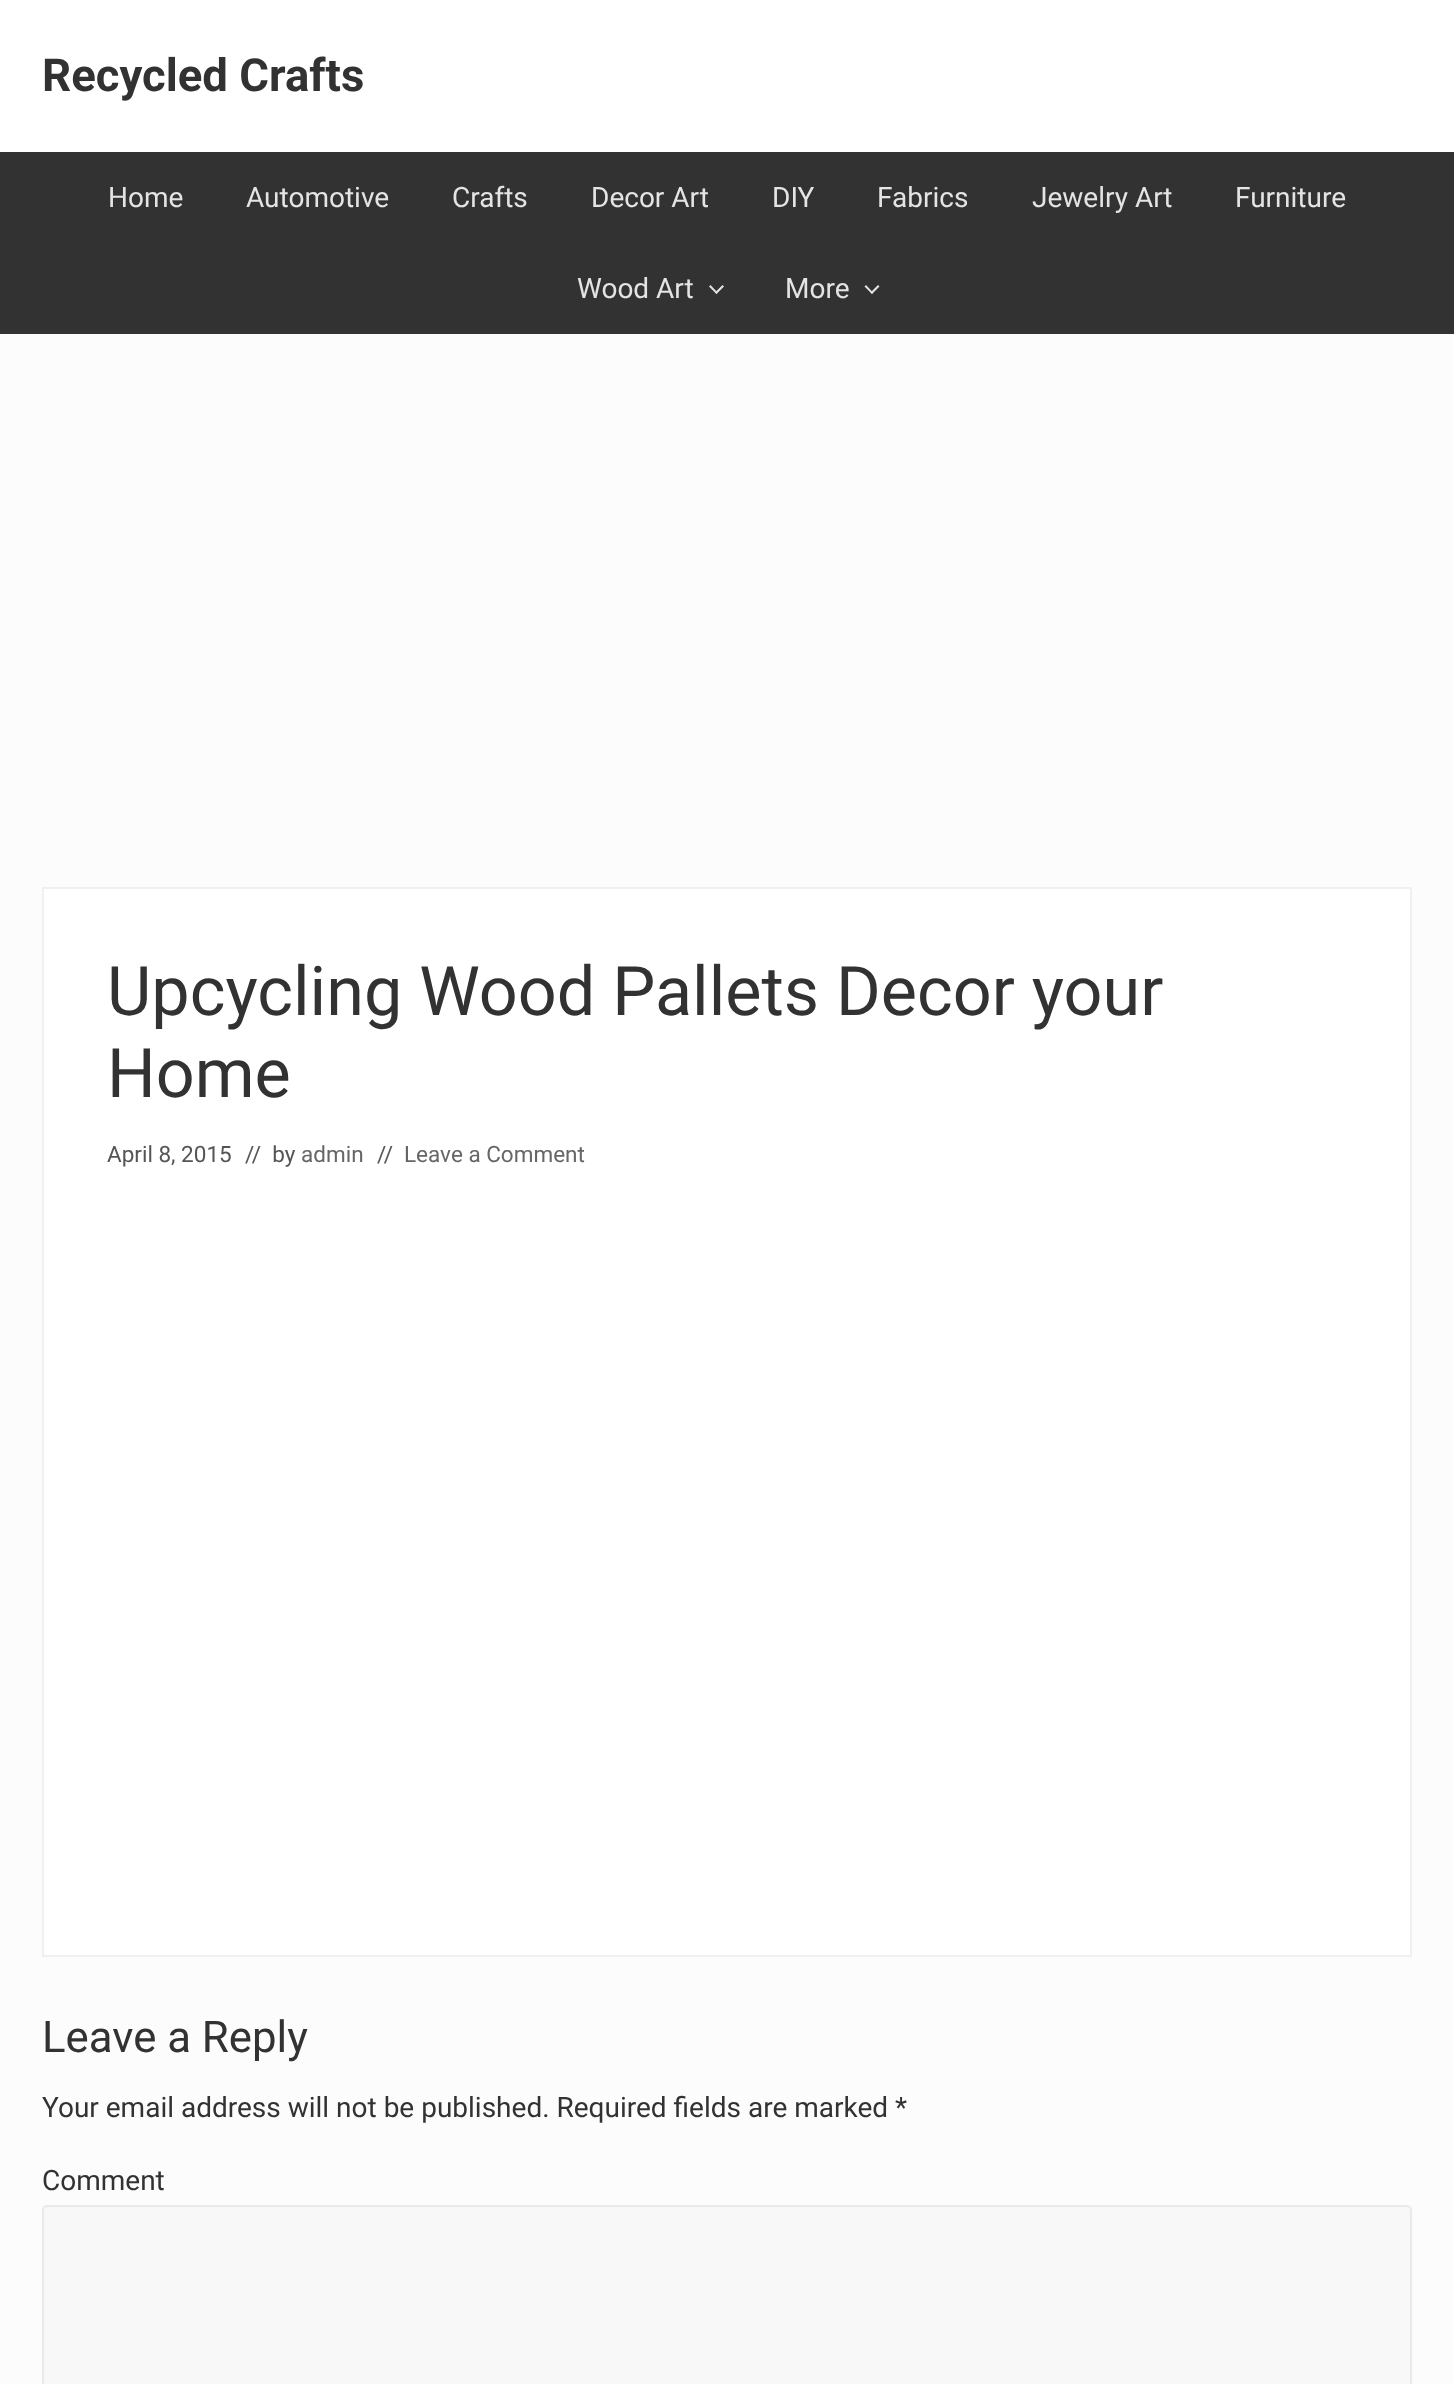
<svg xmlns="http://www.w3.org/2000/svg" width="1454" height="2384">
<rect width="100%" height="100%" fill="#fcfcfc"/>
<rect width="1454" height="152" fill="#fff"/>
<text x="42" y="91" style="font-family:Roboto;font-size:45.5px;font-weight:bold;fill:#323232">Recycled Crafts</text>
<rect y="152" width="1454" height="182" fill="#323232"/>
<text x="108" y="207" style="font-family:Roboto;font-size:28px;fill:#e4e4e4">Home</text>
<text x="246" y="207" style="font-family:Roboto;font-size:28px;fill:#e4e4e4">Automotive</text>
<text x="452" y="207" style="font-family:Roboto;font-size:28px;fill:#e4e4e4">Crafts</text>
<text x="591" y="207" style="font-family:Roboto;font-size:28px;fill:#e4e4e4">Decor Art</text>
<text x="772" y="207" style="font-family:Roboto;font-size:28px;fill:#e4e4e4">DIY</text>
<text x="877" y="207" style="font-family:Roboto;font-size:28px;fill:#e4e4e4">Fabrics</text>
<text x="1032" y="207" style="font-family:Roboto;font-size:28px;fill:#e4e4e4">Jewelry Art</text>
<text x="1235" y="207" style="font-family:Roboto;font-size:28px;fill:#e4e4e4">Furniture</text>
<text x="577" y="298" style="font-family:Roboto;font-size:28px;fill:#e4e4e4">Wood Art</text>
<path d="M722.5 285l1.5 1.5l-7.5 7.5l-1.5-1.5z" fill="#e4e4e4"/>
<path d="M710.5 285l7 7.5l-1 1.5l-7.5-7.5z" fill="#e4e4e4"/>
<text x="785" y="298" style="font-family:Roboto;font-size:28px;fill:#e4e4e4">More</text>
<path d="M878 285l1.5 1.5l-7.5 7.5l-1.5-1.5z" fill="#e4e4e4"/>
<path d="M866 285l7 7.5l-1 1.5l-7.5-7.5z" fill="#e4e4e4"/>
<rect x="43" y="888" width="1368" height="1068" fill="#fff" stroke="#f0f0f0" stroke-width="2"/>
<text x="107" y="1015" style="font-family:Roboto;font-size:68.3px;fill:#323232">Upcycling Wood Pallets Decor your</text>
<text x="107" y="1097" style="font-family:Roboto;font-size:68.3px;fill:#323232">Home</text>
<text x="107" y="1162" style="font-family:Roboto;font-size:22.5px;fill:#555">April 8, 2015</text>
<text x="245" y="1162" style="font-family:Roboto;font-size:22.5px;fill:#555" xml:space="preserve">//  by</text>
<text x="301" y="1162" style="font-family:Roboto;font-size:22.5px;fill:#666">admin</text>
<text x="377" y="1162" style="font-family:Roboto;font-size:22.5px;fill:#555">//</text>
<text x="404" y="1162" style="font-family:Roboto;font-size:22.5px;fill:#666">Leave a Comment</text>
<text x="42" y="2052" style="font-family:Roboto;font-size:43.75px;fill:#323232">Leave a Reply</text>
<text x="42" y="2117" style="font-family:Roboto;font-size:28px;fill:#323232">Your email address will not be published. Required fields are marked *</text>
<text x="42" y="2190" style="font-family:Roboto;font-size:28px;fill:#323232">Comment</text>
<rect x="43" y="2206" width="1368" height="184" rx="4" fill="#f8f8f8" stroke="#e9e9e9" stroke-width="2"/>
</svg>
